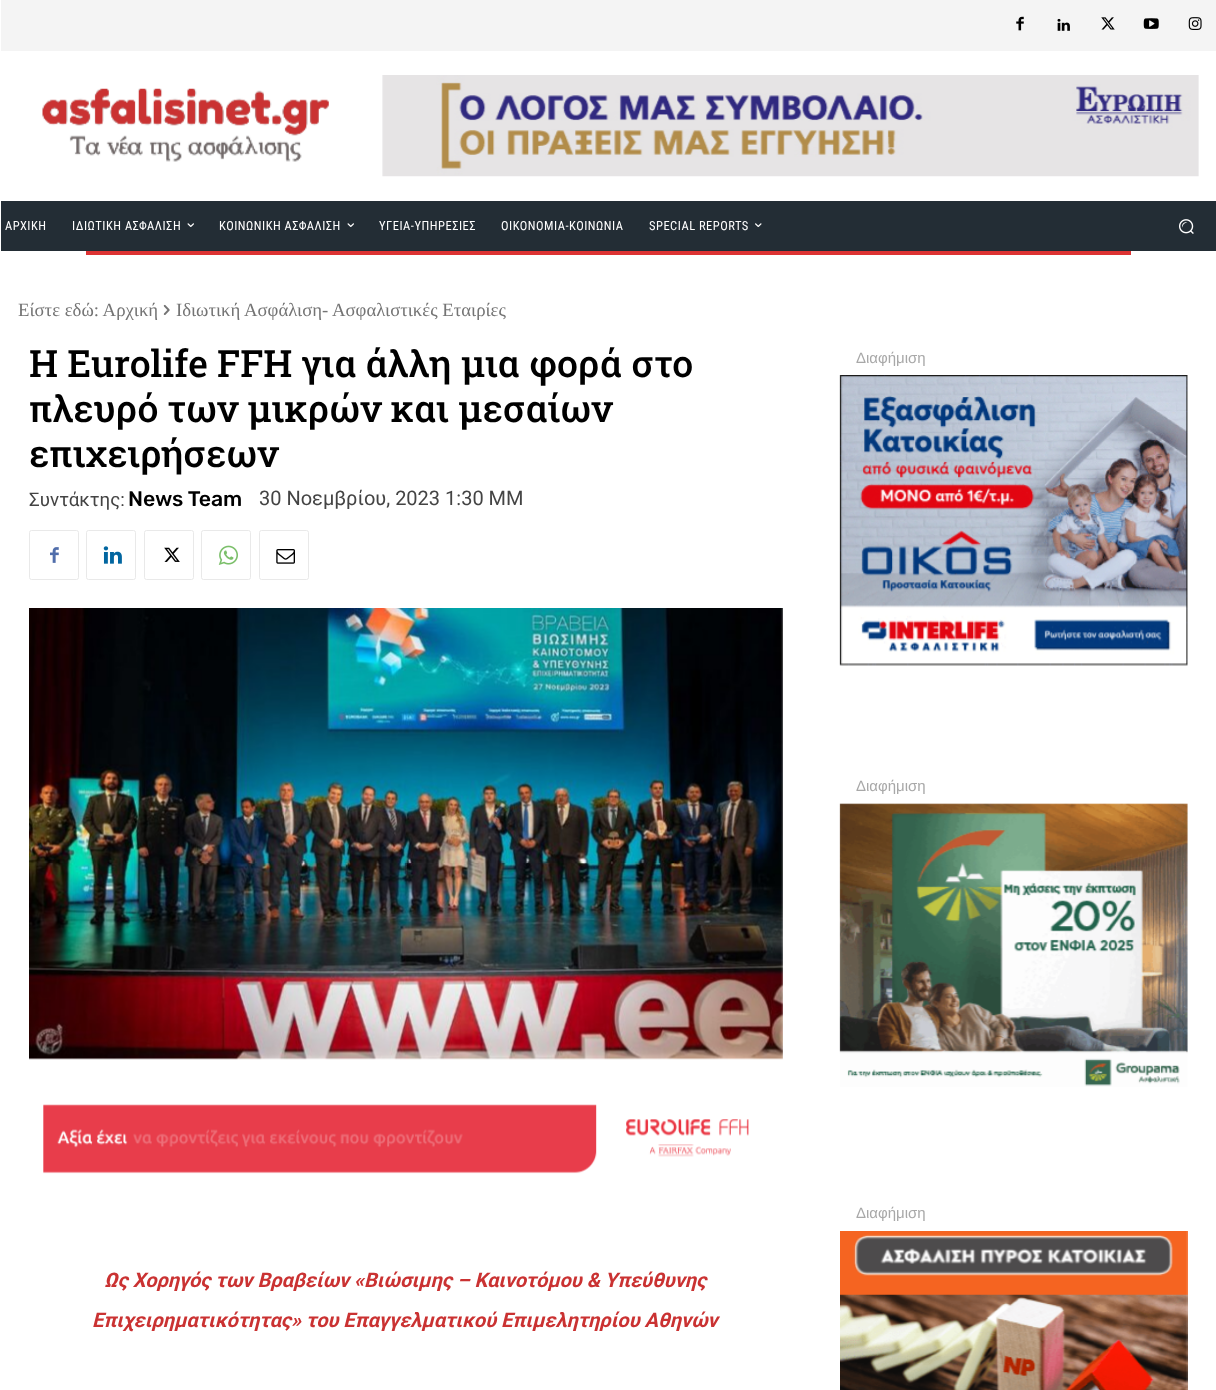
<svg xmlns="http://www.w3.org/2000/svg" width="1216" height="1390">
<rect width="100%" height="100%" fill="#fff"/>
<rect x="1" width="1215" height="51" fill="#f4f4f4"/>
<image x="1016" y="16" width="8" height="15" href="media/1.png"/>
<image x="1057" y="18" width="13" height="13" href="media/2.png"/>
<image x="1101" y="17" width="14" height="13" href="media/3.png"/>
<image x="1143" y="18" width="16" height="11" href="media/4.png"/>
<image x="1188" y="17" width="14" height="13" href="media/5.png"/>
<image x="42" y="88" width="287" height="74" href="media/6.png"/>
<image x="382" y="75" width="817" height="102" href="media/7.png"/>
<rect x="1" y="201" width="1215" height="50" fill="#232d35"/>
<text x="5" y="230" style="font-family:Roboto Condensed;font-size:12.5px;letter-spacing:0.5px;fill:#fff">ΑΡΧΙΚΗ</text>
<text x="72" y="230" style="font-family:Roboto Condensed;font-size:12.5px;letter-spacing:0.5px;fill:#fff">ΙΔΙΩΤΙΚΗ ΑΣΦΑΛΙΣΗ</text>
<image x="187" y="223" width="7" height="4" href="media/8.png"/>
<text x="219" y="230" style="font-family:Roboto Condensed;font-size:12.5px;letter-spacing:0.5px;fill:#fff">ΚΟΙΝΩΝΙΚΗ ΑΣΦΑΛΙΣΗ</text>
<image x="347" y="223" width="7" height="4" href="media/8.png"/>
<text x="379" y="230" style="font-family:Roboto Condensed;font-size:12.5px;letter-spacing:0.5px;fill:#fff">ΥΓΕΙΑ-ΥΠΗΡΕΣΙΕΣ</text>
<text x="501" y="230" style="font-family:Roboto Condensed;font-size:12.5px;letter-spacing:0.5px;fill:#fff">ΟΙΚΟΝΟΜΙΑ-ΚΟΙΝΩΝΙΑ</text>
<text x="649" y="230" style="font-family:Roboto Condensed;font-size:12.5px;letter-spacing:0.5px;fill:#fff">SPECIAL REPORTS</text>
<image x="755" y="223" width="7" height="4" href="media/9.png"/>
<image x="1179" y="219" width="15" height="15" href="media/10.png"/>
<rect x="86" y="251" width="1045" height="4" fill="#d33"/>
<text x="18" y="316" style="font-family:Liberation Serif;font-size:18.75px;fill:#747474">Είστε εδώ: Αρχική</text>
<image x="163" y="304" width="7" height="11" href="media/11.png"/>
<text x="176" y="316" style="font-family:Liberation Serif;font-size:18.75px;fill:#747474">Ιδιωτική Ασφάλιση- Ασφαλιστικές Εταιρίες</text>
<text x="29" y="377" style="font-family:Roboto Slab;font-size:37.5px;font-weight:500;fill:#000">Η Eurolife FFH για άλλη μια φορά στο</text>
<text x="29" y="422" style="font-family:Roboto Slab;font-size:37.5px;font-weight:500;fill:#000">πλευρό των μικρών και μεσαίων</text>
<text x="29" y="467" style="font-family:Roboto Slab;font-size:37.5px;font-weight:500;fill:#000">επιχειρήσεων</text>
<text x="29" y="506" style="font-family:Roboto;font-size:18.75px;fill:#444">Συντάκτης:</text>
<text x="128" y="506" style="font-family:Rubik;font-size:21.25px;font-weight:500;fill:#000">News Team</text>
<text x="259" y="505" style="font-family:Roboto;font-size:20px;fill:#444">30 Νοεμβρίου, 2023 1:30 ΜΜ</text>
<rect x="29.5" y="530.5" width="49" height="49" rx="2" fill="none" stroke="#e9e9e9"/>
<image x="50" y="547" width="9" height="16" href="media/12.png"/>
<rect x="86.5" y="530.5" width="49" height="49" rx="2" fill="none" stroke="#e9e9e9"/>
<image x="103" y="546" width="19" height="18" href="media/13.png"/>
<rect x="144.5" y="530.5" width="49" height="49" rx="2" fill="none" stroke="#e9e9e9"/>
<image x="164" y="547" width="16" height="15" href="media/14.png"/>
<rect x="201.5" y="530.5" width="49" height="49" rx="2" fill="none" stroke="#e9e9e9"/>
<image x="218" y="545" width="20" height="20" href="media/15.png"/>
<rect x="259.5" y="530.5" width="49" height="49" rx="2" fill="none" stroke="#e9e9e9"/>
<image x="276" y="549" width="19" height="15" href="media/16.png"/>
<image x="29" y="608" width="754" height="452" href="media/17.png"/>
<image x="43" y="1104" width="706" height="70" href="media/18.png"/>
<text x="104" y="1287" style="font-family:Roboto;font-size:20px;font-weight:bold;font-style:italic;fill:#ca3232">Ως Χορηγός των Βραβείων «Βιώσιμης – Καινοτόμου &amp; Υπεύθυνης</text>
<text x="92" y="1327" style="font-family:Roboto;font-size:20px;font-weight:bold;font-style:italic;fill:#ca3232">Επιχειρηματικότητας» του Επαγγελματικού Επιμελητηρίου Αθηνών</text>
<text x="856" y="363" style="font-family:Liberation Sans;font-size:15px;fill:#a8a8a8">Διαφήμιση</text>
<image x="839" y="375" width="349" height="291" href="media/19.png"/>
<text x="856" y="791" style="font-family:Liberation Sans;font-size:15px;fill:#a8a8a8">Διαφήμιση</text>
<image x="839" y="803" width="349" height="284" href="media/20.png"/>
<text x="856" y="1218" style="font-family:Liberation Sans;font-size:15px;fill:#a8a8a8">Διαφήμιση</text>
<image x="840" y="1231" width="348" height="159" href="media/21.png"/>
</svg>
